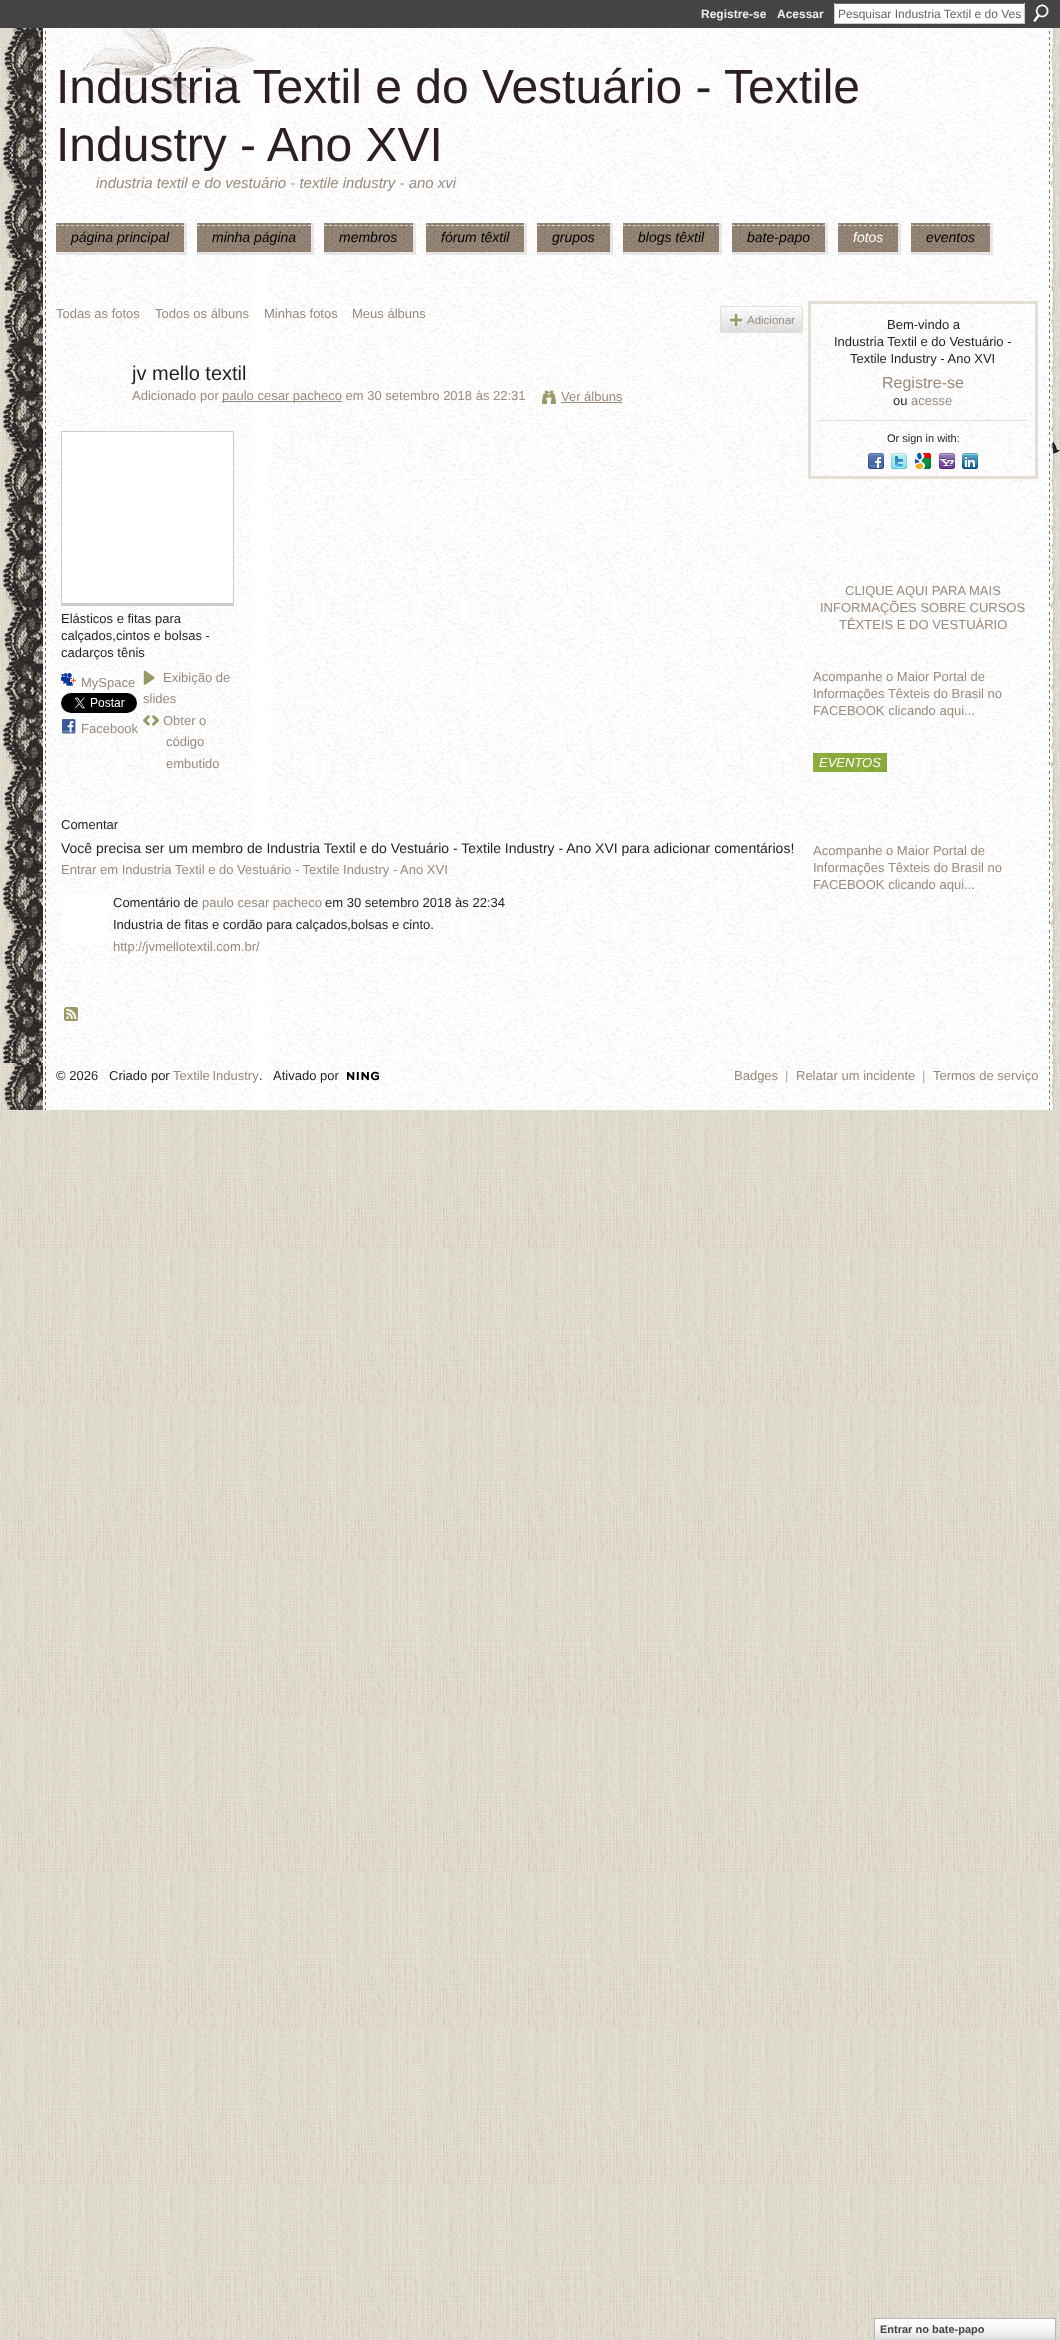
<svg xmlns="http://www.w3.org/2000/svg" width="1060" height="2340">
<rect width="100%" height="100%" fill="#fff"/>
<image x="0" y="28" width="1060" height="2312" href="media/1.png"/>
<rect width="1060" height="28" fill="#444"/>
<text x="701" y="18" style="font-family:Liberation Sans;font-size:12px;font-weight:bold;fill:#eee">Registre-se</text>
<text x="777" y="18" style="font-family:Liberation Sans;font-size:12px;font-weight:bold;fill:#eee">Acessar</text>
<rect x="835" y="4" width="189" height="19" fill="#fff"/>
<rect x="834" y="3" width="191" height="1" fill="#666"/>
<rect x="1024" y="3" width="1" height="21" fill="#ccc"/>
<rect x="834" y="23" width="191" height="1" fill="#ccc"/>
<rect x="834" y="3" width="1" height="21" fill="#ccc"/>
<text x="838" y="18" style="font-family:Liberation Sans;font-size:12px;fill:#666">Pesquisar Industria Textil e do Ves</text>
<image x="1033" y="4" width="16" height="18" href="media/2.png"/>
<image x="2" y="28" width="1053" height="230" href="media/3.png"/>
<image x="47" y="28" width="226" height="104" href="media/4.png"/>
<text x="56" y="103" style="font-family:Liberation Sans;font-size:48px;fill:#2c1e24">Industria Textil e do Vestuário - Textile</text>
<text x="56" y="161" style="font-family:Liberation Sans;font-size:48px;fill:#2c1e24">Industry - Ano XVI</text>
<text x="96" y="188" style="font-family:Liberation Sans;font-size:15px;font-style:italic;fill:#998a7c">industria textil e do vestuário - textile industry - ano xvi</text>
<image x="56" y="223" width="131" height="32" href="media/5.png"/>
<image x="56" y="223" width="128" height="29" href="media/6.png"/>
<path d="M56 225.5h128" fill="none" stroke="#ddd8c9" stroke-dasharray="3 2"/>
<text x="71" y="242" style="font-family:Liberation Sans;font-size:14px;font-style:italic;fill:#000">página principal</text>
<image x="197" y="223" width="117" height="32" href="media/7.png"/>
<image x="197" y="223" width="114" height="29" href="media/8.png"/>
<path d="M197 225.5h114" fill="none" stroke="#ddd8c9" stroke-dasharray="3 2.05"/>
<text x="212" y="242" style="font-family:Liberation Sans;font-size:14px;font-style:italic;fill:#000">minha página</text>
<image x="324" y="223" width="92" height="32" href="media/9.png"/>
<image x="324" y="223" width="89" height="29" href="media/10.png"/>
<path d="M324 225.5h89" fill="none" stroke="#ddd8c9" stroke-dasharray="3 2.06"/>
<text x="339" y="242" style="font-family:Liberation Sans;font-size:14px;font-style:italic;fill:#000">membros</text>
<image x="426" y="223" width="101" height="32" href="media/11.png"/>
<image x="426" y="223" width="98" height="29" href="media/12.png"/>
<path d="M426 225.5h98" fill="none" stroke="#ddd8c9" stroke-dasharray="3 2"/>
<text x="441" y="242" style="font-family:Liberation Sans;font-size:14px;font-style:italic;fill:#000">fórum têxtil</text>
<image x="537" y="223" width="76" height="32" href="media/13.png"/>
<image x="537" y="223" width="73" height="29" href="media/14.png"/>
<path d="M537 225.5h73" fill="none" stroke="#ddd8c9" stroke-dasharray="3 2"/>
<text x="552" y="242" style="font-family:Liberation Sans;font-size:14px;font-style:italic;fill:#000">grupos</text>
<image x="623" y="223" width="99" height="32" href="media/15.png"/>
<image x="623" y="223" width="96" height="29" href="media/16.png"/>
<path d="M623 225.5h96" fill="none" stroke="#ddd8c9" stroke-dasharray="3 1.89"/>
<text x="638" y="242" style="font-family:Liberation Sans;font-size:14px;font-style:italic;fill:#000">blogs têxtil</text>
<image x="732" y="223" width="96" height="32" href="media/17.png"/>
<image x="732" y="223" width="93" height="29" href="media/18.png"/>
<path d="M732 225.5h93" fill="none" stroke="#ddd8c9" stroke-dasharray="3 2"/>
<text x="747" y="242" style="font-family:Liberation Sans;font-size:14px;font-style:italic;fill:#000">bate-papo</text>
<image x="838" y="223" width="63" height="32" href="media/19.png"/>
<image x="838" y="223" width="60" height="29" href="media/20.png"/>
<path d="M838 225.5h60" fill="none" stroke="#ddd8c9" stroke-dasharray="3 2.18"/>
<text x="853" y="242" style="font-family:Liberation Sans;font-size:14px;font-style:italic;fill:#fff">fotos</text>
<image x="911" y="223" width="82" height="32" href="media/21.png"/>
<image x="911" y="223" width="79" height="29" href="media/22.png"/>
<path d="M911 225.5h79" fill="none" stroke="#ddd8c9" stroke-dasharray="3 2.07"/>
<text x="926" y="242" style="font-family:Liberation Sans;font-size:14px;font-style:italic;fill:#000">eventos</text>
<image x="4" y="258" width="1051" height="33" href="media/23.png"/>
<image x="1050" y="441" width="10" height="24" href="media/24.png"/>
<image x="2" y="291" width="1053" height="772" href="media/25.png"/>
<text x="56" y="318" style="font-family:Liberation Sans;font-size:13px;fill:#998a7c">Todas as fotos</text>
<text x="155" y="318" style="font-family:Liberation Sans;font-size:13px;fill:#998a7c">Todos os álbuns</text>
<text x="264" y="318" style="font-family:Liberation Sans;font-size:13px;fill:#998a7c">Minhas fotos</text>
<text x="352" y="318" style="font-family:Liberation Sans;font-size:13px;fill:#998a7c">Meus álbuns</text>
<image x="720" y="309" width="83" height="24" href="media/26.png"/>
<rect x="720.5" y="306.5" width="82" height="26" rx="2.5" fill="none" stroke="#e4ded3"/>
<image x="730" y="314" width="12" height="12" href="media/27.png"/>
<text x="747" y="324" style="font-family:Liberation Sans;font-size:11.5px;fill:#998a7c">Adicionar</text>
<text x="132" y="380" style="font-family:Liberation Sans;font-size:20px;fill:#241e1e">jv mello textil</text>
<text x="132" y="400" style="font-family:Liberation Sans;font-size:13px;fill:#998a7c">Adicionado por</text>
<rect x="222" y="401" width="120" height="1" fill="#998a7c"/>
<text x="222" y="400" style="font-family:Liberation Sans;font-size:13px;fill:#998a7c">paulo cesar pacheco em 30 setembro 2018 às 22:31</text>
<image x="542" y="390" width="14" height="14" href="media/28.png"/>
<text x="561" y="401" style="font-family:Liberation Sans;font-size:13px;fill:#998a7c">Ver álbuns</text>
<rect x="561" y="402" width="61" height="1" fill="#998a7c"/>
<rect x="62" y="432" width="171" height="171" fill="#fff"/>
<rect x="61" y="431" width="173" height="1" fill="#ccc"/>
<rect x="233" y="431" width="1" height="175" fill="#ccc"/>
<rect x="61" y="603" width="173" height="3" fill="#ccc"/>
<rect x="61" y="431" width="1" height="175" fill="#ccc"/>
<text x="61" y="623" style="font-family:Liberation Sans;font-size:13px;fill:#241e1e">Elásticos e fitas para</text>
<text x="61" y="640" style="font-family:Liberation Sans;font-size:13px;fill:#241e1e">calçados,cintos e bolsas -</text>
<text x="61" y="657" style="font-family:Liberation Sans;font-size:13px;fill:#241e1e">cadarços tênis</text>
<image x="61" y="673" width="15" height="13" href="media/29.png"/>
<text x="81" y="687" style="font-family:Liberation Sans;font-size:13px;fill:#998a7c">MySpace</text>
<image x="61" y="693" width="76" height="20" href="media/30.png"/>
<image x="62" y="719" width="14" height="15" href="media/31.png"/>
<text x="81" y="733" style="font-family:Liberation Sans;font-size:13px;fill:#998a7c">Facebook</text>
<image x="143" y="670" width="12" height="15" href="media/32.png"/>
<text x="163" y="682" style="font-family:Liberation Sans;font-size:13px;fill:#998a7c">Exibição de</text>
<text x="143" y="703" style="font-family:Liberation Sans;font-size:13px;fill:#998a7c">slides</text>
<image x="143" y="715" width="16" height="11" href="media/33.png"/>
<text x="163" y="725" style="font-family:Liberation Sans;font-size:13px;fill:#998a7c">Obter o</text>
<text x="166" y="746" style="font-family:Liberation Sans;font-size:13px;fill:#998a7c">código</text>
<text x="166" y="768" style="font-family:Liberation Sans;font-size:13px;fill:#998a7c">embutido</text>
<text x="61" y="829" style="font-family:Liberation Sans;font-size:13px;fill:#241e1e">Comentar</text>
<text x="61" y="853" style="font-family:Liberation Sans;font-size:14px;fill:#241e1e">Você precisa ser um membro de Industria Textil e do Vestuário - Textile Industry - Ano XVI para adicionar comentários!</text>
<text x="61" y="874" style="font-family:Liberation Sans;font-size:13px;fill:#998a7c">Entrar em Industria Textil e do Vestuário - Textile Industry - Ano XVI</text>
<rect x="61" y="895" width="48" height="48" fill="#fff"/>
<text x="113" y="907" style="font-family:Liberation Sans;font-size:13px;fill:#241e1e">Comentário de</text>
<text x="202" y="907" style="font-family:Liberation Sans;font-size:13px;fill:#998a7c">paulo cesar pacheco</text>
<text x="325" y="907" style="font-family:Liberation Sans;font-size:13px;fill:#241e1e">em 30 setembro 2018 às 22:34</text>
<text x="113" y="929" style="font-family:Liberation Sans;font-size:13px;fill:#241e1e">Industria de fitas e cordão para calçados,bolsas e cinto.</text>
<text x="113" y="951" style="font-family:Liberation Sans;font-size:13px;fill:#998a7c">http://jvmellotextil.com.br/</text>
<image x="64" y="1007" width="14" height="14" href="media/34.png"/>
<rect x="809.5" y="302.5" width="227" height="175" fill="none" stroke="#e4ded3" stroke-width="3"/>
<text x="887" y="329" style="font-family:Liberation Sans;font-size:13px;fill:#241e1e">Bem-vindo a</text>
<text x="834" y="346" style="font-family:Liberation Sans;font-size:13px;fill:#241e1e">Industria Textil e do Vestuário -</text>
<text x="850" y="363" style="font-family:Liberation Sans;font-size:13px;fill:#241e1e">Textile Industry - Ano XVI</text>
<text x="882" y="388" style="font-family:Liberation Sans;font-size:16px;fill:#998a7c">Registre-se</text>
<text x="893" y="405" style="font-family:Liberation Sans;font-size:13px;fill:#241e1e">ou</text>
<text x="911" y="405" style="font-family:Liberation Sans;font-size:13px;fill:#998a7c">acesse</text>
<rect x="819" y="420" width="208" height="1" fill="#e4ded3"/>
<text x="887" y="442" style="font-family:Liberation Sans;font-size:11px;fill:#241e1e">Or sign in with:</text>
<image x="868" y="453" width="16" height="16" href="media/35.png"/>
<image x="891" y="453" width="16" height="16" href="media/36.png"/>
<image x="915" y="453" width="16" height="16" href="media/37.png"/>
<image x="939" y="453" width="16" height="16" href="media/38.png"/>
<image x="962" y="453" width="16" height="16" href="media/39.png"/>
<text x="845" y="595" style="font-family:Liberation Sans;font-size:13px;fill:#998a7c">CLIQUE AQUI PARA MAIS</text>
<text x="820" y="612" style="font-family:Liberation Sans;font-size:13px;fill:#998a7c">INFORMAÇÕES SOBRE CURSOS</text>
<text x="839" y="629" style="font-family:Liberation Sans;font-size:13px;fill:#998a7c">TÊXTEIS E DO VESTUÁRIO</text>
<text x="813" y="681" style="font-family:Liberation Sans;font-size:13px;fill:#998a7c">Acompanhe o Maior Portal de</text>
<text x="813" y="698" style="font-family:Liberation Sans;font-size:13px;fill:#998a7c">Informações Têxteis do Brasil no</text>
<text x="813" y="715" style="font-family:Liberation Sans;font-size:13px;fill:#998a7c">FACEBOOK clicando aqui...</text>
<rect x="813" y="753" width="74" height="19" fill="#8bae3c"/>
<image x="813" y="753" width="74" height="19" href="media/40.png"/>
<text x="819" y="767" style="font-family:Liberation Sans;font-size:13px;font-style:italic;fill:#fff">EVENTOS</text>
<text x="813" y="855" style="font-family:Liberation Sans;font-size:13px;fill:#998a7c">Acompanhe o Maior Portal de</text>
<text x="813" y="872" style="font-family:Liberation Sans;font-size:13px;fill:#998a7c">Informações Têxteis do Brasil no</text>
<text x="813" y="889" style="font-family:Liberation Sans;font-size:13px;fill:#998a7c">FACEBOOK clicando aqui...</text>
<image x="4" y="1063" width="1051" height="47" href="media/41.png"/>
<text x="56" y="1080" style="font-family:Liberation Sans;font-size:13px;fill:#241e1e">© 2026</text>
<text x="109" y="1080" style="font-family:Liberation Sans;font-size:13px;fill:#241e1e">Criado por</text>
<text x="173" y="1080" word-spacing="-1" style="font-family:Liberation Sans;font-size:13px;fill:#998a7c">Textile Industry</text>
<text x="259" y="1080" style="font-family:Liberation Sans;font-size:13px;fill:#241e1e">.</text>
<text x="273" y="1080" style="font-family:Liberation Sans;font-size:13px;fill:#241e1e">Ativado por</text>
<image x="347" y="1071" width="32" height="10" href="media/42.png"/>
<text x="734" y="1080" style="font-family:Liberation Sans;font-size:13px;fill:#998a7c">Badges</text>
<text x="785" y="1080" style="font-family:Liberation Sans;font-size:13px;fill:#aaaf9f">|</text>
<text x="796" y="1080" style="font-family:Liberation Sans;font-size:13px;fill:#998a7c">Relatar um incidente</text>
<text x="922" y="1080" style="font-family:Liberation Sans;font-size:13px;fill:#aaaf9f">|</text>
<text x="933" y="1080" style="font-family:Liberation Sans;font-size:13px;fill:#998a7c">Termos de serviço</text>
<image x="875" y="2319" width="180" height="21" href="media/43.png"/>
<rect x="874.5" y="2318.5" width="181" height="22" fill="none" stroke="#b7b7b7"/>
<text x="880" y="2333" style="font-family:Liberation Sans;font-size:11px;font-weight:bold;fill:#454545">Entrar no bate-papo</text>
</svg>
